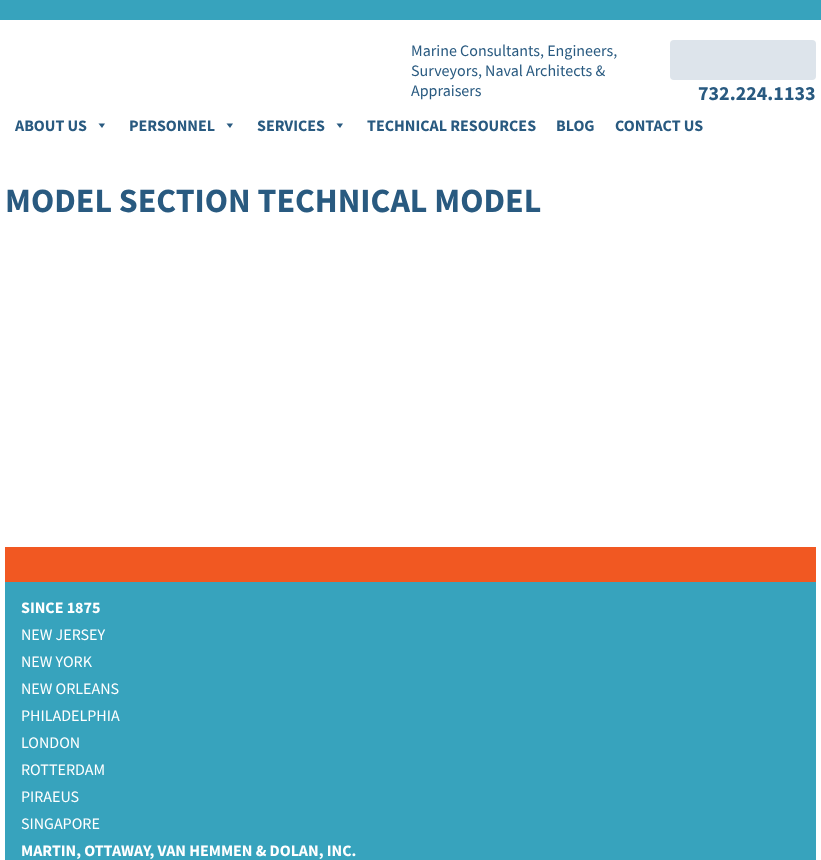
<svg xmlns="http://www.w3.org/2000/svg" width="821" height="860">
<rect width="100%" height="100%" fill="#fff"/>
<rect width="821" height="20" fill="#37a3bd"/>
<text x="411" y="56" style="font-family:Source Sans Pro;font-size:16px;fill:#295a80">Marine Consultants, Engineers,</text>
<text x="411" y="76" style="font-family:Source Sans Pro;font-size:16px;fill:#295a80">Surveyors, Naval Architects &amp;</text>
<text x="411" y="96" style="font-family:Source Sans Pro;font-size:16px;fill:#295a80">Appraisers</text>
<rect x="670" y="40" width="146" height="40" rx="4" fill="#dde4eb"/>
<text x="698" y="100" style="font-family:Source Sans Pro;font-size:20px;font-weight:bold;fill:#295a80">732.224.1133</text>
<text x="15" y="131" style="font-family:Source Sans Pro;font-size:16px;font-weight:bold;fill:#295a80">ABOUT US</text>
<path d="M105 123.5l-3 4.5l-3.5-4.5z" fill="#295a80"/>
<text x="129" y="131" style="font-family:Source Sans Pro;font-size:16px;font-weight:bold;fill:#295a80">PERSONNEL</text>
<path d="M233 123.5l-3 4.5l-3.5-4.5z" fill="#295a80"/>
<text x="257" y="131" style="font-family:Source Sans Pro;font-size:16px;font-weight:bold;fill:#295a80">SERVICES</text>
<path d="M343 123.5l-3 4.5l-3.5-4.5z" fill="#295a80"/>
<text x="367" y="131" style="font-family:Source Sans Pro;font-size:16px;font-weight:bold;fill:#295a80">TECHNICAL RESOURCES</text>
<text x="556" y="131" style="font-family:Source Sans Pro;font-size:16px;font-weight:bold;fill:#295a80">BLOG</text>
<text x="615" y="131" style="font-family:Source Sans Pro;font-size:16px;font-weight:bold;fill:#295a80">CONTACT US</text>
<text x="5" y="212" style="font-family:Source Sans Pro;font-size:34px;font-weight:bold;fill:#295a80">MODEL SECTION TECHNICAL MODEL</text>
<rect x="5" y="582" width="811" height="278" fill="#37a3bd"/>
<rect x="5" y="547" width="811" height="35" fill="#f15822"/>
<text x="21" y="613" style="font-family:Source Sans Pro;font-size:16px;font-weight:bold;fill:#fff">SINCE 1875</text>
<text x="21" y="640" style="font-family:Source Sans Pro;font-size:16px;fill:#fff">NEW JERSEY</text>
<text x="21" y="667" style="font-family:Source Sans Pro;font-size:16px;fill:#fff">NEW YORK</text>
<text x="21" y="694" style="font-family:Source Sans Pro;font-size:16px;fill:#fff">NEW ORLEANS</text>
<text x="21" y="721" style="font-family:Source Sans Pro;font-size:16px;fill:#fff">PHILADELPHIA</text>
<text x="21" y="748" style="font-family:Source Sans Pro;font-size:16px;fill:#fff">LONDON</text>
<text x="21" y="775" style="font-family:Source Sans Pro;font-size:16px;fill:#fff">ROTTERDAM</text>
<text x="21" y="802" style="font-family:Source Sans Pro;font-size:16px;fill:#fff">PIRAEUS</text>
<text x="21" y="829" style="font-family:Source Sans Pro;font-size:16px;fill:#fff">SINGAPORE</text>
<text x="21" y="856" style="font-family:Source Sans Pro;font-size:16px;font-weight:bold;fill:#fff">MARTIN, OTTAWAY, VAN HEMMEN &amp; DOLAN, INC.</text>
</svg>
